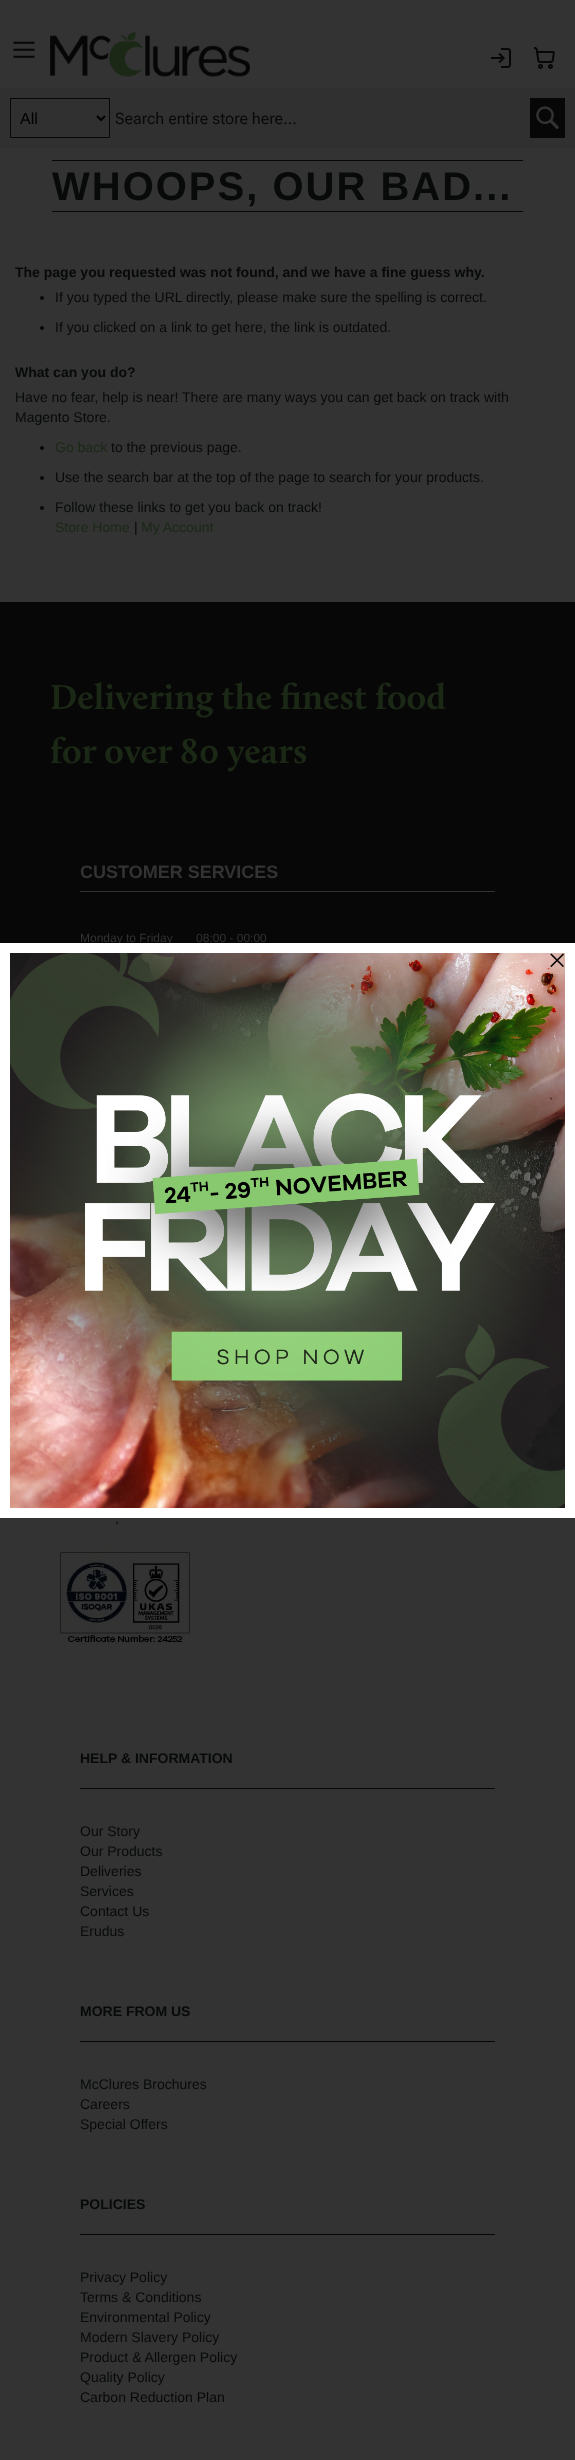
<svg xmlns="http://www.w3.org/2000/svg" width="575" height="2460">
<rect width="100%" height="100%" fill="#333"/>
<image x="13" y="41" width="22" height="17" href="media/1.png"/>
<image x="50" y="31" width="200" height="46" href="media/2.png"/>
<image x="491" y="48" width="20" height="20" href="media/3.png"/>
<image x="534" y="47" width="21" height="22" href="media/4.png"/>
<rect y="88" width="575" height="60" fill="#303030"/>
<rect x="10.5" y="98.5" width="99" height="39" fill="none" stroke="#080707"/>
<path d="M97 116l4 4l4-4" fill="none" stroke="#000" stroke-width="2"/>
<text x="20" y="124" style="font-family:Liberation Sans;font-size:16px;fill:#000">All</text>
<text x="115" y="124" style="font-family:Roboto Flex;font-size:16px;fill:#080a0a">Search entire store here...</text>
<rect x="530" y="98" width="35" height="40" fill="#080707"/>
<image x="536" y="106" width="23" height="23" href="media/5.png"/>
<rect x="52" y="160" width="471" height="1" fill="#080707"/>
<rect x="52" y="211" width="471" height="1" fill="#080707"/>
<text x="52" y="200" style="font-family:Liberation Sans;font-size:40px;font-weight:bold;letter-spacing:2px;fill:#080a0a">WHOOPS, OUR BAD...</text>
<text x="15" y="277" style="font-family:Liberation Sans;font-size:14px;font-weight:bold;fill:#080a0a">The page you requested was not found, and we have a fine guess why.</text>
<circle cx="42" cy="298" r="2" fill="#080a0a"/>
<text x="55" y="302" style="font-family:Liberation Sans;font-size:14px;fill:#080a0a">If you typed the URL directly, please make sure the spelling is correct.</text>
<circle cx="42" cy="328" r="2" fill="#080a0a"/>
<text x="55" y="332" style="font-family:Liberation Sans;font-size:14px;fill:#080a0a">If you clicked on a link to get here, the link is outdated.</text>
<text x="15" y="377" style="font-family:Liberation Sans;font-size:14px;font-weight:bold;fill:#080a0a">What can you do?</text>
<text x="15" y="402" style="font-family:Liberation Sans;font-size:14px;fill:#080a0a">Have no fear, help is near! There are many ways you can get back on track with</text>
<text x="15" y="422" style="font-family:Liberation Sans;font-size:14px;fill:#080a0a">Magento Store.</text>
<circle cx="42" cy="448" r="2" fill="#080a0a"/>
<text x="55" y="452" style="font-family:Liberation Sans;font-size:14px;fill:#1b2816">Go back</text>
<text x="111" y="452" style="font-family:Liberation Sans;font-size:14px;fill:#080a0a">to the previous page.</text>
<circle cx="42" cy="478" r="2" fill="#080a0a"/>
<text x="55" y="482" style="font-family:Liberation Sans;font-size:14px;fill:#080a0a">Use the search bar at the top of the page to search for your products.</text>
<circle cx="42" cy="508" r="2" fill="#080a0a"/>
<text x="55" y="512" style="font-family:Liberation Sans;font-size:14px;fill:#080a0a">Follow these links to get you back on track!</text>
<text x="55" y="532" style="font-family:Liberation Sans;font-size:14px;fill:#1b2816">Store Home</text>
<text x="134" y="532" style="font-family:Liberation Sans;font-size:14px;fill:#080a0a">|</text>
<text x="141" y="532" style="font-family:Liberation Sans;font-size:14px;fill:#1b2816">My Account</text>
<rect y="602" width="575" height="341" fill="#080707"/>
<text x="50" y="709" style="font-family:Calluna;font-size:36px;font-weight:bold;fill:#1b2816">Delivering the finest food</text>
<text x="50" y="763" style="font-family:Calluna;font-size:36px;font-weight:bold;fill:#1b2816">for over 80 years</text>
<rect x="80" y="891" width="415" height="1" fill="#333"/>
<text x="80" y="878" style="font-family:Liberation Sans;font-size:18px;font-weight:bold;fill:#333">CUSTOMER SERVICES</text>
<text x="80" y="942" style="font-family:Liberation Sans;font-size:12px;fill:#333" xml:space="preserve">Monday to Friday       08:00 - 00:00</text>
<text x="115" y="1523" style="font-family:Liberation Sans;font-size:14px;fill:#080a0a">,</text>
<image x="58" y="1548" width="136" height="96" href="media/6.png"/>
<rect x="80" y="1788" width="415" height="1" fill="#070606"/>
<text x="80" y="1763" style="font-family:Liberation Sans;font-size:14px;font-weight:bold;fill:#080a0a">HELP &amp; INFORMATION</text>
<text x="80" y="1836" style="font-family:Liberation Sans;font-size:14px;fill:#080a0a">Our Story</text>
<text x="80" y="1856" style="font-family:Liberation Sans;font-size:14px;fill:#080a0a">Our Products</text>
<text x="80" y="1876" style="font-family:Liberation Sans;font-size:14px;fill:#080a0a">Deliveries</text>
<text x="80" y="1896" style="font-family:Liberation Sans;font-size:14px;fill:#080a0a">Services</text>
<text x="80" y="1916" style="font-family:Liberation Sans;font-size:14px;fill:#080a0a">Contact Us</text>
<text x="80" y="1936" style="font-family:Liberation Sans;font-size:14px;fill:#080a0a">Erudus</text>
<rect x="80" y="2041" width="415" height="1" fill="#070606"/>
<text x="80" y="2016" style="font-family:Liberation Sans;font-size:14px;font-weight:bold;fill:#080a0a">MORE FROM US</text>
<text x="80" y="2089" style="font-family:Liberation Sans;font-size:14px;fill:#080a0a">McClures Brochures</text>
<text x="80" y="2109" style="font-family:Liberation Sans;font-size:14px;fill:#080a0a">Careers</text>
<text x="80" y="2129" style="font-family:Liberation Sans;font-size:14px;fill:#080a0a">Special Offers</text>
<rect x="80" y="2234" width="415" height="1" fill="#070606"/>
<text x="80" y="2209" style="font-family:Liberation Sans;font-size:14px;font-weight:bold;fill:#080a0a">POLICIES</text>
<text x="80" y="2282" style="font-family:Liberation Sans;font-size:14px;fill:#080a0a">Privacy Policy</text>
<text x="80" y="2302" style="font-family:Liberation Sans;font-size:14px;fill:#080a0a">Terms &amp; Conditions</text>
<text x="80" y="2322" style="font-family:Liberation Sans;font-size:14px;fill:#080a0a">Environmental Policy</text>
<text x="80" y="2342" style="font-family:Liberation Sans;font-size:14px;fill:#080a0a">Modern Slavery Policy</text>
<text x="80" y="2362" style="font-family:Liberation Sans;font-size:14px;fill:#080a0a">Product &amp; Allergen Policy</text>
<text x="80" y="2382" style="font-family:Liberation Sans;font-size:14px;fill:#080a0a">Quality Policy</text>
<text x="80" y="2402" style="font-family:Liberation Sans;font-size:14px;fill:#080a0a">Carbon Reduction Plan</text>
<rect y="943" width="575" height="575" fill="#fff"/>
<image x="10" y="953" width="555" height="555" href="media/7.png"/>
<image x="550" y="953" width="14" height="14" href="media/8.png"/>
</svg>
